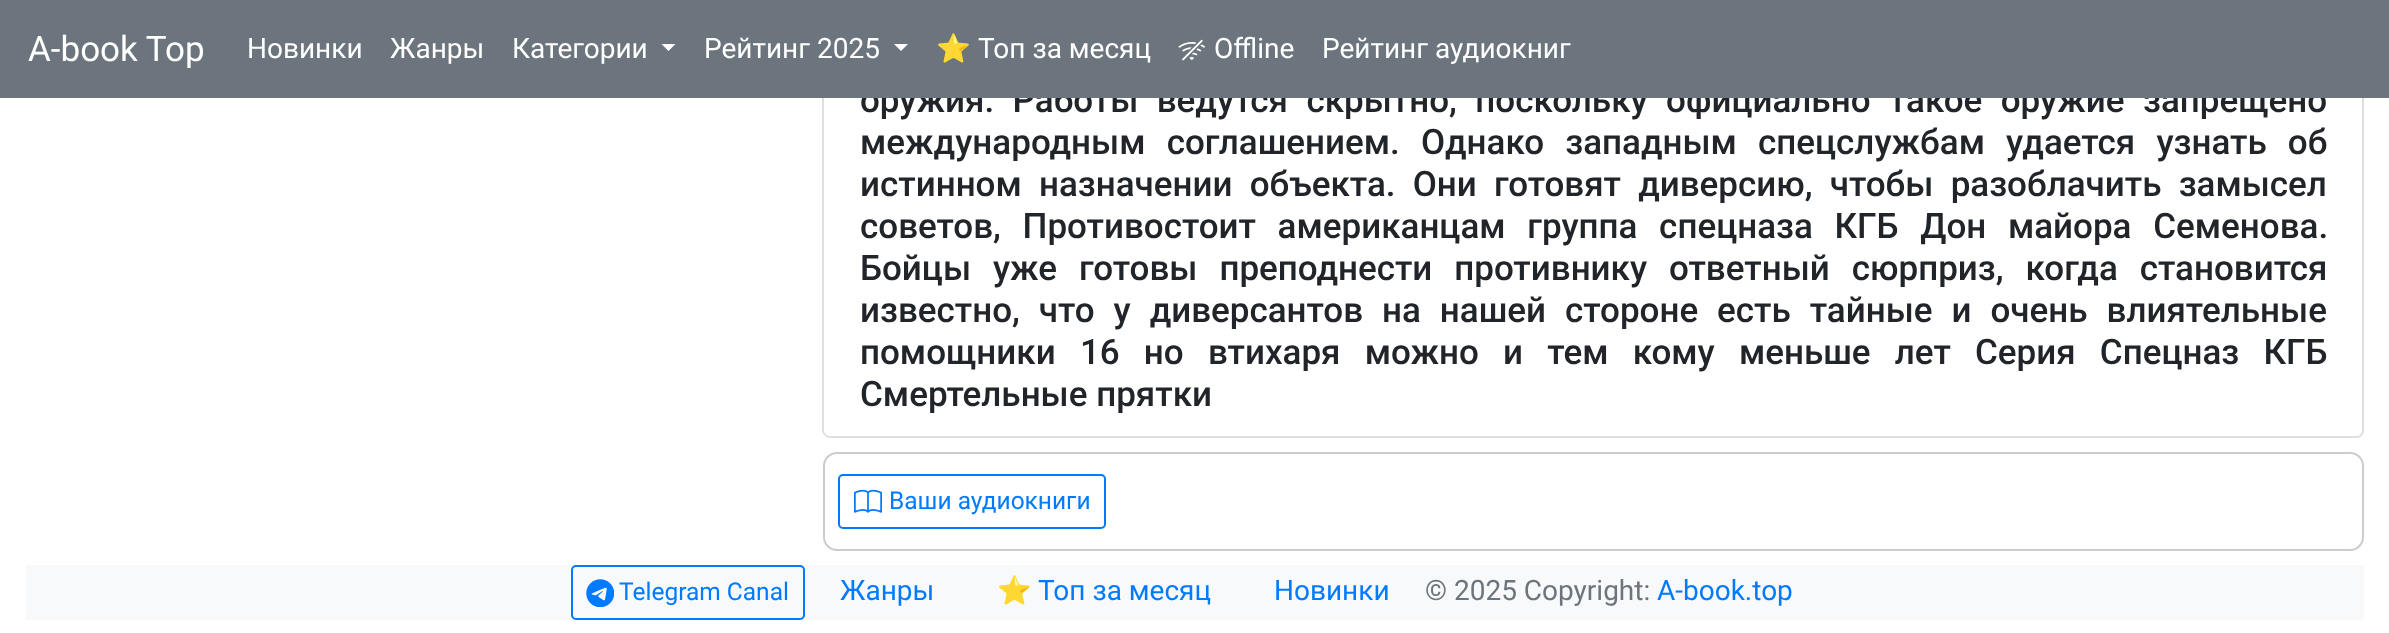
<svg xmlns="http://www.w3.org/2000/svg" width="2389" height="633">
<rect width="100%" height="100%" fill="#fff"/>
<path d="M822-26h1542v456c0 4-3 8-7 8h-1527c-4 0-8-4-8-8zm2 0h1538v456c0 3-2 6-5 6h-1527c-3 0-6-3-6-6z" fill="#dfdfdf" fill-rule="evenodd"/>
<text x="860" y="112" word-spacing="9.75" style="font-family:Roboto;font-size:35px;font-weight:500;fill:#212529">оружия. Работы ведутся скрытно, поскольку официально такое оружие запрещено</text>
<rect width="2389" height="98" fill="#6c757d"/>
<text x="28" y="61" style="font-family:Roboto;font-size:35px;fill:#fff">A-book Top</text>
<text x="247" y="58" style="font-family:Roboto;font-size:28px;fill:#fff">Новинки</text>
<text x="390" y="58" style="font-family:Roboto;font-size:28px;fill:#fff">Жанры</text>
<text x="512" y="58" style="font-family:Roboto;font-size:28px;fill:#fff">Категории</text>
<path d="M661.5 44h14l-7 7z" fill="#fff"/>
<text x="704" y="58" style="font-family:Roboto;font-size:28px;fill:#fff">Рейтинг 2025</text>
<path d="M894 44h14l-7 7z" fill="#fff"/>
<text x="936" y="58" style="font-family:Noto Color Emoji;font-size:28px;fill:#fff">⭐</text>
<text x="978" y="58" style="font-family:Roboto;font-size:28px;fill:#fff">Топ за месяц</text>
<image x="1178" y="39" width="27" height="22" href="media/1.png"/>
<text x="1214" y="58" style="font-family:Roboto;font-size:28px;fill:#fff">Offline</text>
<text x="1322" y="58" style="font-family:Roboto;font-size:28px;fill:#fff">Рейтинг аудиокниг</text>
<text x="860" y="154" word-spacing="12.5" style="font-family:Roboto;font-size:35px;font-weight:500;fill:#212529">международным соглашением. Однако западным спецслужбам удается узнать об</text>
<text x="860" y="196" word-spacing="8.5" style="font-family:Roboto;font-size:35px;font-weight:500;fill:#212529">истинном назначении объекта. Они готовят диверсию, чтобы разоблачить замысел</text>
<text x="860" y="238" word-spacing="13" style="font-family:Roboto;font-size:35px;font-weight:500;fill:#212529">советов, Противостоит американцам группа спецназа КГБ Дон майора Семенова.</text>
<text x="860" y="280" word-spacing="13.25" style="font-family:Roboto;font-size:35px;font-weight:500;fill:#212529">Бойцы уже готовы преподнести противнику ответный сюрприз, когда становится</text>
<text x="860" y="322" word-spacing="10.25" style="font-family:Roboto;font-size:35px;font-weight:500;fill:#212529">известно, что у диверсантов на нашей стороне есть тайные и очень влиятельные</text>
<text x="860" y="364" word-spacing="15.5" style="font-family:Roboto;font-size:35px;font-weight:500;fill:#212529">помощники 16 но втихаря можно и тем кому меньше лет Серия Спецназ КГБ</text>
<text x="860" y="406" style="font-family:Roboto;font-size:35px;font-weight:500;fill:#212529">Смертельные прятки</text>
<rect x="824" y="453" width="1539" height="97" rx="13" fill="none" stroke="#ccc" stroke-width="2"/>
<rect x="839" y="475" width="266" height="53" rx="4" fill="none" stroke="#007bff" stroke-width="2"/>
<image x="854" y="489" width="28" height="24" href="media/2.png"/>
<text x="889" y="509" style="font-family:Roboto;font-size:24.5px;fill:#007bff">Ваши аудиокниги</text>
<rect x="26" y="565" width="2338" height="55" fill="#f8f9fa"/>
<rect x="572" y="566" width="232" height="53" rx="4" fill="none" stroke="#007bff" stroke-width="2"/>
<image x="586" y="579" width="28" height="28" href="media/3.png"/>
<text x="619" y="600" style="font-family:Roboto;font-size:24.5px;fill:#007bff">Telegram Canal</text>
<text x="840" y="600" style="font-family:Roboto;font-size:28px;fill:#007bff">Жанры</text>
<text x="997" y="600" style="font-family:Noto Color Emoji;font-size:28px;fill:#007bff">⭐</text>
<text x="1038" y="600" style="font-family:Roboto;font-size:28px;fill:#007bff">Топ за месяц</text>
<text x="1274" y="600" style="font-family:Roboto;font-size:28px;fill:#007bff">Новинки</text>
<text x="1425" y="600" style="font-family:Roboto;font-size:28px;fill:#6c757d">© 2025 Copyright:</text>
<text x="1657" y="600" style="font-family:Roboto;font-size:28px;fill:#007bff">A-book.top</text>
</svg>
